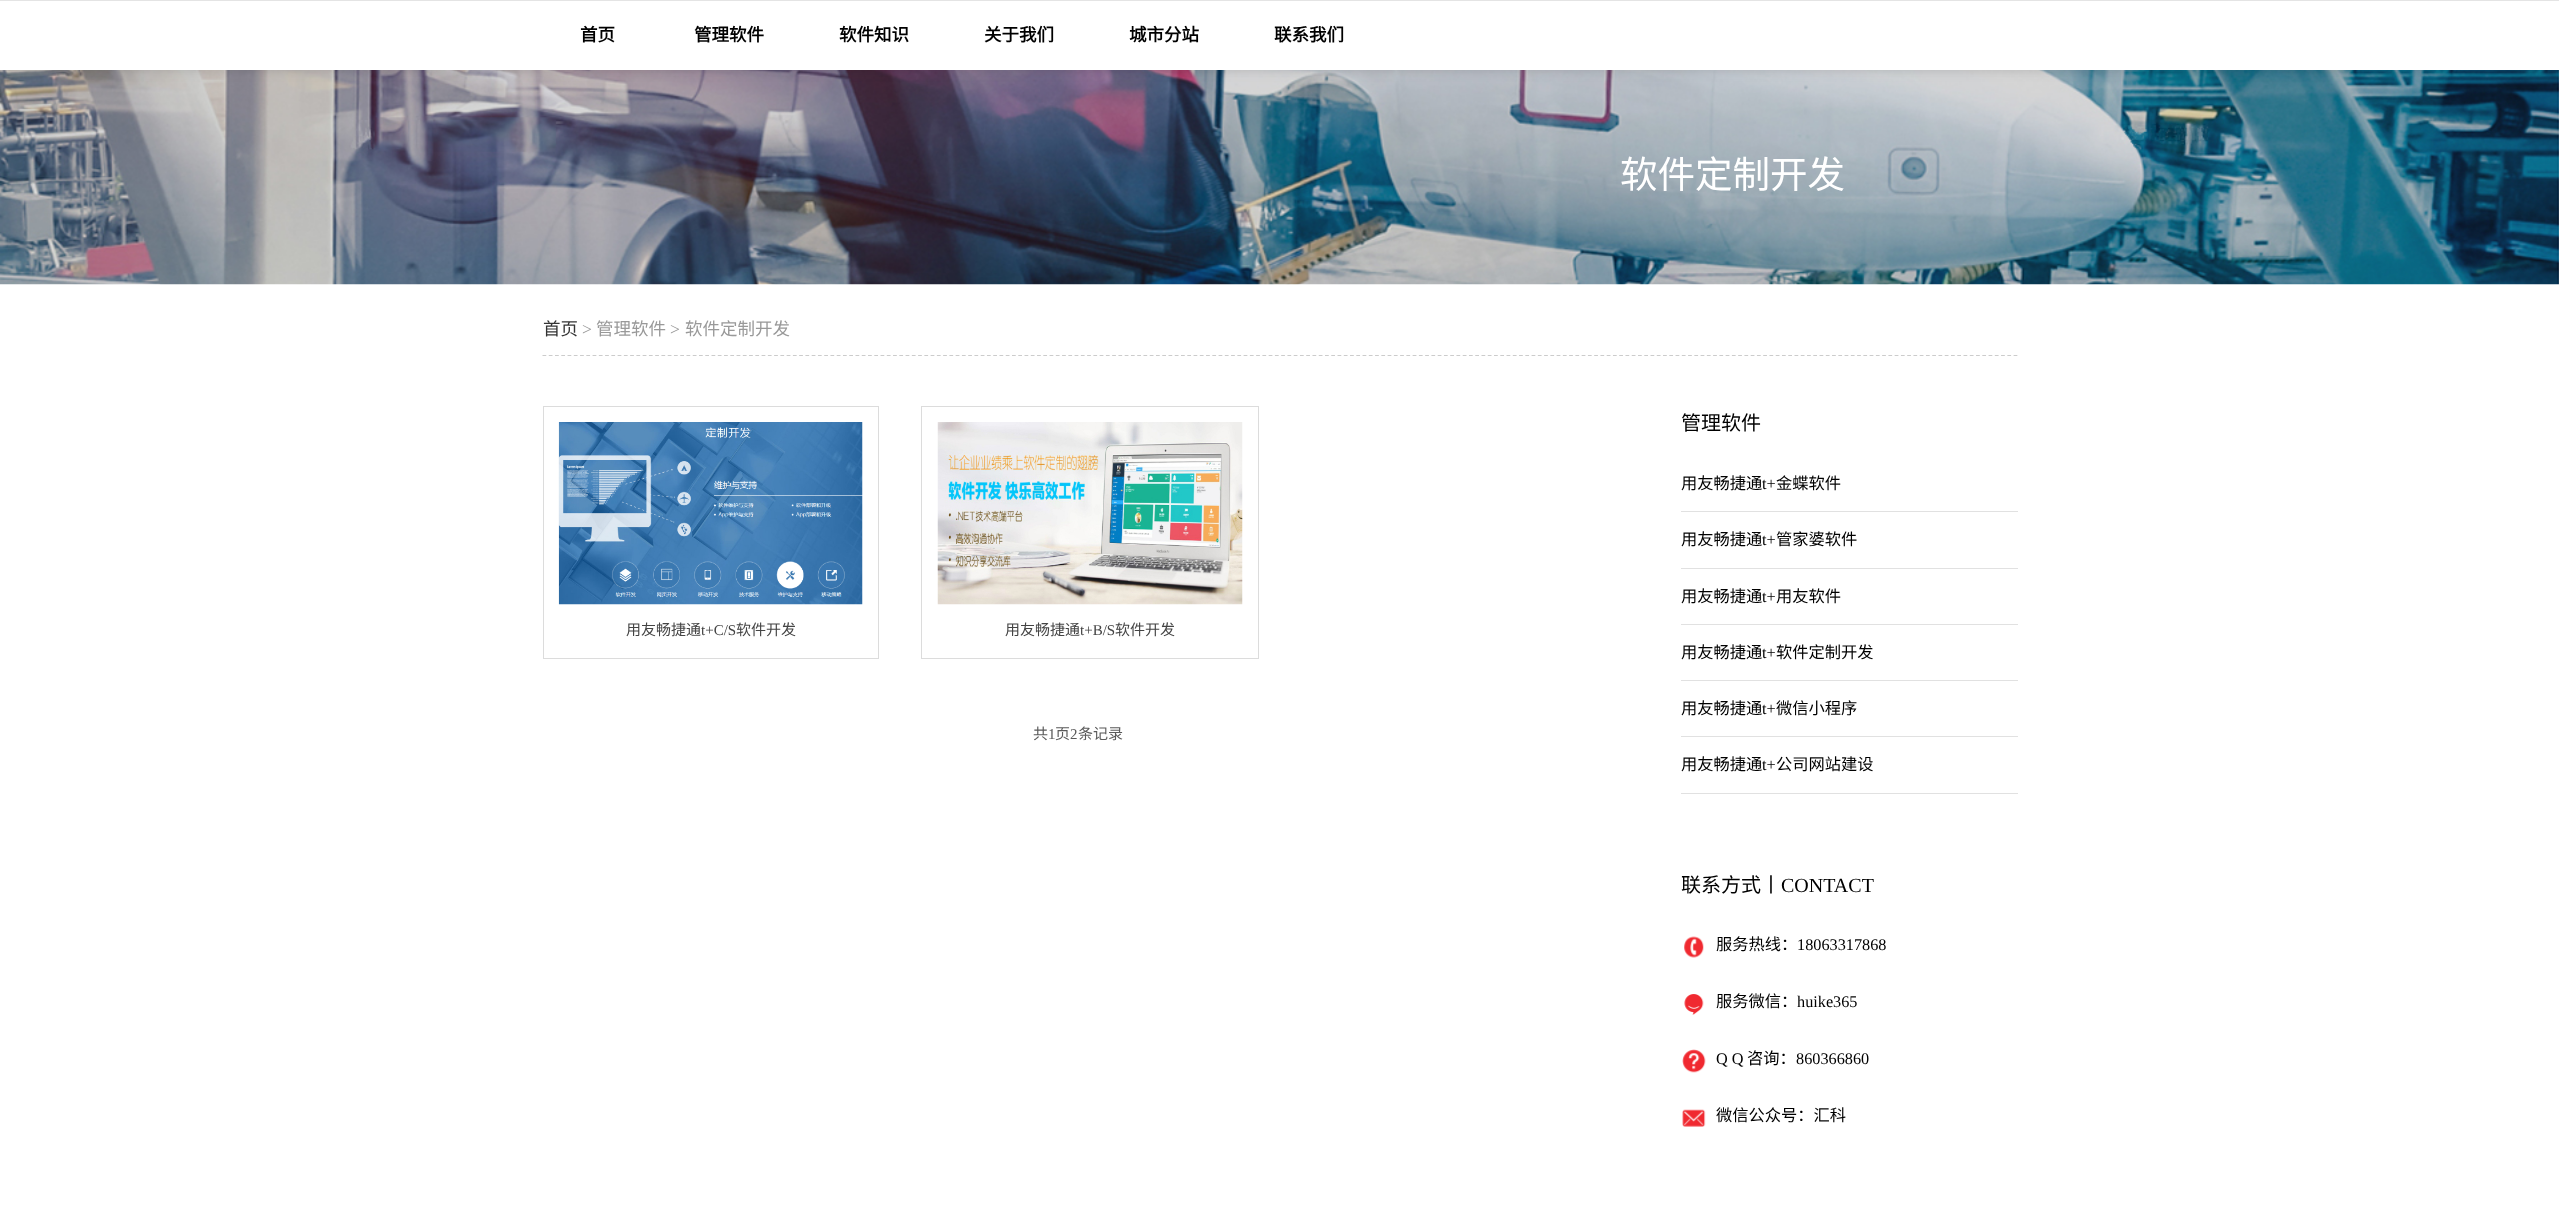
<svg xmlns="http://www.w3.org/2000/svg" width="2559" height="1205">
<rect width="100%" height="100%" fill="#fff"/>
<image x="0" y="70" width="2559" height="215" href="media/1.png"/>
<rect width="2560" height="70" fill="#00000026" filter="blur(6px)"/>
<rect y="1" width="2559" height="69" fill="#fff"/>
<rect width="2559" height="1" fill="#e4e4e4"/>
<text x="580" y="41" style="font-family:Noto Sans CJK SC;font-size:17.5px;font-weight:bold;fill:#000">首页</text>
<text x="694" y="41" style="font-family:Noto Sans CJK SC;font-size:17.5px;font-weight:bold;fill:#000">管理软件</text>
<text x="839" y="41" style="font-family:Noto Sans CJK SC;font-size:17.5px;font-weight:bold;fill:#000">软件知识</text>
<text x="984" y="41" style="font-family:Noto Sans CJK SC;font-size:17.5px;font-weight:bold;fill:#000">关于我们</text>
<text x="1129" y="41" style="font-family:Noto Sans CJK SC;font-size:17.5px;font-weight:bold;fill:#000">城市分站</text>
<text x="1274" y="41" style="font-family:Noto Sans CJK SC;font-size:17.5px;font-weight:bold;fill:#000">联系我们</text>
<text x="1620" y="188" style="font-family:Noto Sans CJK SC;font-size:37.5px;fill:#fff">软件定制开发</text>
<path d="M542.5 355.5h1475" fill="none" stroke="#ccc" stroke-width="1.2" stroke-dasharray="3.75 2.51"/>
<text x="543" y="335" style="font-family:Noto Sans CJK SC;font-size:17.5px;fill:#333">首页</text>
<text x="582" y="335" style="font-family:Liberation Serif;font-size:17.5px;fill:#999">&gt;</text>
<text x="596" y="335" style="font-family:Noto Sans CJK SC;font-size:17.5px;fill:#999">管理软件</text>
<text x="670" y="335" style="font-family:Liberation Serif;font-size:17.5px;fill:#999">&gt;</text>
<text x="685" y="335" style="font-family:Noto Sans CJK SC;font-size:17.5px;fill:#999">软件定制开发</text>
<rect x="543.5" y="406.5" width="335" height="252" fill="none" stroke="#dcdcdc"/>
<image x="558" y="422" width="305" height="183" href="media/2.png"/>
<text x="626" y="635" style="font-family:Noto Sans CJK SC;font-size:15px;fill:#444">用友畅捷通</text>
<text x="701" y="635" style="font-family:Liberation Serif;font-size:15px;fill:#444">t+C/S</text>
<text x="736" y="635" style="font-family:Noto Sans CJK SC;font-size:15px;fill:#444">软件开发</text>
<rect x="921.5" y="406.5" width="337" height="252" fill="none" stroke="#dcdcdc"/>
<image x="937" y="422" width="306" height="183" href="media/3.png"/>
<text x="1005" y="635" style="font-family:Noto Sans CJK SC;font-size:15px;fill:#444">用友畅捷通</text>
<text x="1080" y="635" style="font-family:Liberation Serif;font-size:15px;fill:#444">t+B/S</text>
<text x="1115" y="635" style="font-family:Noto Sans CJK SC;font-size:15px;fill:#444">软件开发</text>
<text x="1033" y="739" style="font-family:Noto Sans CJK SC;font-size:15px;fill:#5a5a5a">共</text>
<text x="1048" y="739" style="font-family:Liberation Serif;font-size:15px;fill:#5a5a5a">1</text>
<text x="1055" y="739" style="font-family:Noto Sans CJK SC;font-size:15px;fill:#5a5a5a">页</text>
<text x="1070" y="739" style="font-family:Liberation Serif;font-size:15px;fill:#5a5a5a">2</text>
<text x="1078" y="739" style="font-family:Noto Sans CJK SC;font-size:15px;fill:#5a5a5a">条记录</text>
<text x="1681" y="430" style="font-family:Noto Sans CJK SC;font-size:20px;fill:#000">管理软件</text>
<rect x="1681" y="511" width="337" height="1" fill="#e1e1e1"/>
<text x="1681" y="489" style="font-family:Noto Sans CJK SC;font-size:16.25px;fill:#000">用友畅捷通</text>
<text x="1762" y="489" style="font-family:Liberation Serif;font-size:16.25px;fill:#000">t+</text>
<text x="1776" y="489" style="font-family:Noto Sans CJK SC;font-size:16.25px;fill:#000">金蝶软件</text>
<rect x="1681" y="568" width="337" height="1" fill="#e1e1e1"/>
<text x="1681" y="545" style="font-family:Noto Sans CJK SC;font-size:16.25px;fill:#000">用友畅捷通</text>
<text x="1762" y="545" style="font-family:Liberation Serif;font-size:16.25px;fill:#000">t+</text>
<text x="1776" y="545" style="font-family:Noto Sans CJK SC;font-size:16.25px;fill:#000">管家婆软件</text>
<rect x="1681" y="624" width="337" height="1" fill="#e1e1e1"/>
<text x="1681" y="602" style="font-family:Noto Sans CJK SC;font-size:16.25px;fill:#000">用友畅捷通</text>
<text x="1762" y="602" style="font-family:Liberation Serif;font-size:16.25px;fill:#000">t+</text>
<text x="1776" y="602" style="font-family:Noto Sans CJK SC;font-size:16.25px;fill:#000">用友软件</text>
<rect x="1681" y="680" width="337" height="1" fill="#e1e1e1"/>
<text x="1681" y="658" style="font-family:Noto Sans CJK SC;font-size:16.25px;fill:#000">用友畅捷通</text>
<text x="1762" y="658" style="font-family:Liberation Serif;font-size:16.25px;fill:#000">t+</text>
<text x="1776" y="658" style="font-family:Noto Sans CJK SC;font-size:16.25px;fill:#000">软件定制开发</text>
<rect x="1681" y="736" width="337" height="1" fill="#e1e1e1"/>
<text x="1681" y="714" style="font-family:Noto Sans CJK SC;font-size:16.25px;fill:#000">用友畅捷通</text>
<text x="1762" y="714" style="font-family:Liberation Serif;font-size:16.25px;fill:#000">t+</text>
<text x="1776" y="714" style="font-family:Noto Sans CJK SC;font-size:16.25px;fill:#000">微信小程序</text>
<rect x="1681" y="793" width="337" height="1" fill="#e1e1e1"/>
<text x="1681" y="770" style="font-family:Noto Sans CJK SC;font-size:16.25px;fill:#000">用友畅捷通</text>
<text x="1762" y="770" style="font-family:Liberation Serif;font-size:16.25px;fill:#000">t+</text>
<text x="1776" y="770" style="font-family:Noto Sans CJK SC;font-size:16.25px;fill:#000">公司网站建设</text>
<text x="1681" y="892" style="font-family:Noto Sans CJK SC;font-size:20px;fill:#000">联系方式丨</text>
<text x="1781" y="892" style="font-family:Liberation Serif;font-size:20px;fill:#000">CONTACT</text>
<image x="1684" y="936" width="20" height="22" href="media/4.png"/>
<text x="1716" y="950" style="font-family:Noto Sans CJK SC;font-size:16.25px;fill:#000">服务热线：</text>
<text x="1797" y="950" style="font-family:Liberation Serif;font-size:16.25px;fill:#000">18063317868</text>
<image x="1684" y="994" width="20" height="21" href="media/5.png"/>
<text x="1716" y="1007" style="font-family:Noto Sans CJK SC;font-size:16.25px;fill:#000">服务微信：</text>
<text x="1797" y="1007" style="font-family:Liberation Serif;font-size:16.25px;fill:#000">huike365</text>
<image x="1682" y="1049" width="24" height="24" href="media/6.png"/>
<text x="1716" y="1064" style="font-family:Liberation Serif;font-size:16.25px;fill:#000">Q Q</text>
<text x="1747" y="1064" style="font-family:Noto Sans CJK SC;font-size:16.25px;fill:#000">咨询：</text>
<text x="1796" y="1064" style="font-family:Liberation Serif;font-size:16.25px;fill:#000">860366860</text>
<image x="1682" y="1109" width="24" height="18" href="media/7.png"/>
<text x="1716" y="1121" style="font-family:Noto Sans CJK SC;font-size:16.25px;fill:#000">微信公众号：汇科</text>
</svg>
